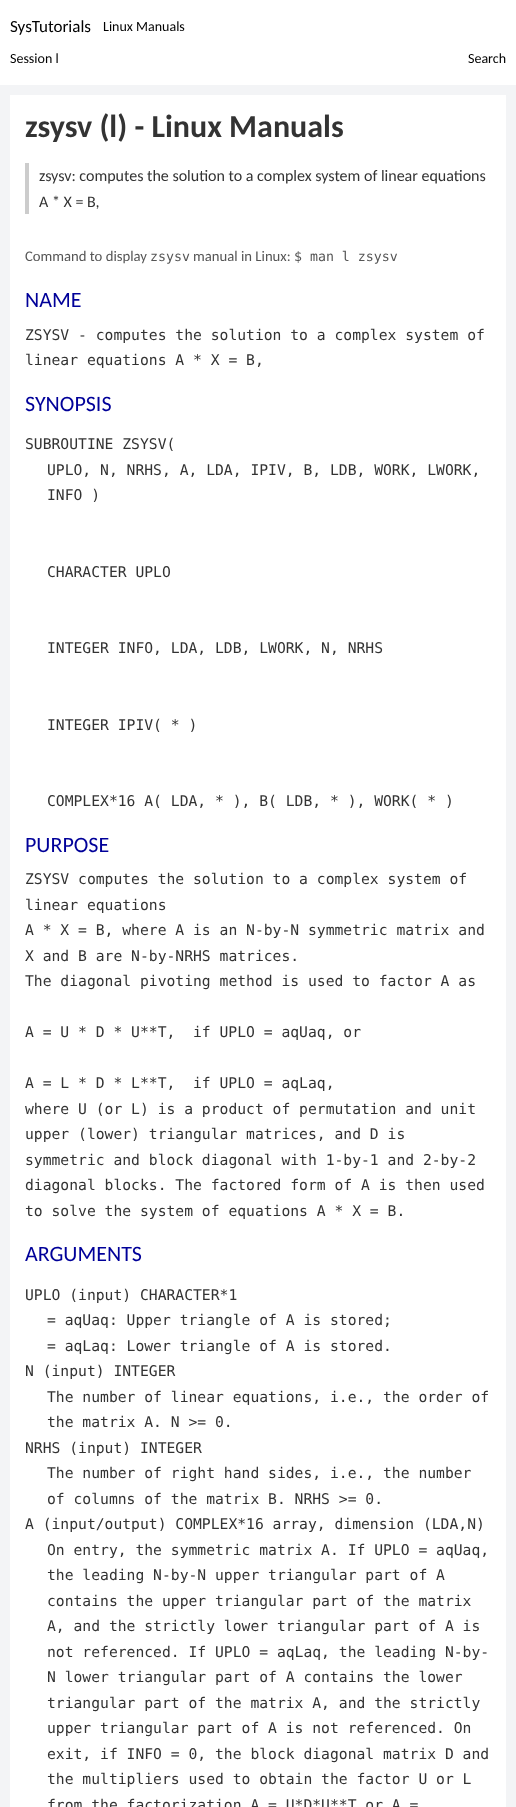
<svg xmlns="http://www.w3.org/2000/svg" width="516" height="1807">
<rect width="100%" height="100%" fill="#f3f4f6"/>
<rect width="516" height="85" fill="#fff"/>
<text x="10" y="32" style="font-family:Carlito;font-size:17px;fill:#000">SysTutorials</text>
<text x="103" y="31" style="font-family:Carlito;font-size:14px;fill:#000">Linux Manuals</text>
<text x="10" y="63" style="font-family:Carlito;font-size:14px;fill:#000">Session l</text>
<text x="468" y="63" style="font-family:Carlito;font-size:14px;fill:#000">Search</text>
<rect x="10" y="95" width="496" height="1712" fill="#fff"/>
<text x="25" y="137" style="font-family:Carlito;font-size:32px;font-weight:bold;fill:#333">zsysv (l) - Linux Manuals</text>
<rect x="25" y="163" width="4" height="51" fill="#ccc"/>
<text x="39" y="181" style="font-family:Carlito;font-size:16px;fill:#333">zsysv: computes the solution to a complex system of linear equations</text>
<text x="39" y="207" style="font-family:Carlito;font-size:16px;fill:#333">A * X = B,</text>
<text x="25" y="261" style="font-family:Carlito;font-size:14.7px;fill:#555">Command to display</text>
<text x="150" y="261" style="font-family:DejaVu Sans Mono;font-size:13.25px;fill:#555">zsysv</text>
<text x="193" y="261" style="font-family:Carlito;font-size:14.7px;fill:#555">manual in Linux:</text>
<text x="294" y="261" style="font-family:DejaVu Sans Mono;font-size:13.25px;fill:#555">$ man l zsysv</text>
<text x="25" y="307" style="font-family:Carlito;font-size:22px;fill:#009">NAME</text>
<text x="25" y="340" style="font-family:DejaVu Sans Mono;font-size:14.7px;fill:#333">ZSYSV - computes the solution to a complex system of</text>
<text x="25" y="365" style="font-family:DejaVu Sans Mono;font-size:14.7px;fill:#333">linear equations A * X = B,</text>
<text x="25" y="411" style="font-family:Carlito;font-size:22px;fill:#009">SYNOPSIS</text>
<text x="25" y="449" style="font-family:DejaVu Sans Mono;font-size:14.7px;fill:#333">SUBROUTINE ZSYSV(</text>
<text x="47" y="475" style="font-family:DejaVu Sans Mono;font-size:14.7px;fill:#333">UPLO, N, NRHS, A, LDA, IPIV, B, LDB, WORK, LWORK,</text>
<text x="47" y="500" style="font-family:DejaVu Sans Mono;font-size:14.7px;fill:#333">INFO )</text>
<text x="47" y="577" style="font-family:DejaVu Sans Mono;font-size:14.7px;fill:#333">CHARACTER UPLO</text>
<text x="47" y="653" style="font-family:DejaVu Sans Mono;font-size:14.7px;fill:#333">INTEGER INFO, LDA, LDB, LWORK, N, NRHS</text>
<text x="47" y="730" style="font-family:DejaVu Sans Mono;font-size:14.7px;fill:#333">INTEGER IPIV( * )</text>
<text x="47" y="806" style="font-family:DejaVu Sans Mono;font-size:14.7px;fill:#333">COMPLEX*16 A( LDA, * ), B( LDB, * ), WORK( * )</text>
<text x="25" y="852" style="font-family:Carlito;font-size:22px;fill:#009">PURPOSE</text>
<text x="25" y="884" style="font-family:DejaVu Sans Mono;font-size:14.7px;fill:#333">ZSYSV computes the solution to a complex system of</text>
<text x="25" y="910" style="font-family:DejaVu Sans Mono;font-size:14.7px;fill:#333">linear equations</text>
<text x="25" y="935" style="font-family:DejaVu Sans Mono;font-size:14.7px;fill:#333">A * X = B, where A is an N-by-N symmetric matrix and</text>
<text x="25" y="961" style="font-family:DejaVu Sans Mono;font-size:14.7px;fill:#333">X and B are N-by-NRHS matrices.</text>
<text x="25" y="986" style="font-family:DejaVu Sans Mono;font-size:14.7px;fill:#333">The diagonal pivoting method is used to factor A as</text>
<text x="25" y="1037" style="font-family:DejaVu Sans Mono;font-size:14.7px;fill:#333">A = U * D * U**T,</text>
<text x="193" y="1037" style="font-family:DejaVu Sans Mono;font-size:14.7px;fill:#333">if UPLO = aqUaq, or</text>
<text x="25" y="1088" style="font-family:DejaVu Sans Mono;font-size:14.7px;fill:#333">A = L * D * L**T,</text>
<text x="193" y="1088" style="font-family:DejaVu Sans Mono;font-size:14.7px;fill:#333">if UPLO = aqLaq,</text>
<text x="25" y="1114" style="font-family:DejaVu Sans Mono;font-size:14.7px;fill:#333">where U (or L) is a product of permutation and unit</text>
<text x="25" y="1139" style="font-family:DejaVu Sans Mono;font-size:14.7px;fill:#333">upper (lower) triangular matrices, and D is</text>
<text x="25" y="1165" style="font-family:DejaVu Sans Mono;font-size:14.7px;fill:#333">symmetric and block diagonal with 1-by-1 and 2-by-2</text>
<text x="25" y="1190" style="font-family:DejaVu Sans Mono;font-size:14.7px;fill:#333">diagonal blocks. The factored form of A is then used</text>
<text x="25" y="1216" style="font-family:DejaVu Sans Mono;font-size:14.7px;fill:#333">to solve the system of equations A * X = B.</text>
<text x="25" y="1261" style="font-family:Carlito;font-size:22px;fill:#009">ARGUMENTS</text>
<text x="25" y="1300" style="font-family:DejaVu Sans Mono;font-size:14.7px;fill:#333">UPLO (input) CHARACTER*1</text>
<text x="47" y="1325" style="font-family:DejaVu Sans Mono;font-size:14.7px;fill:#333">= aqUaq: Upper triangle of A is stored;</text>
<text x="47" y="1351" style="font-family:DejaVu Sans Mono;font-size:14.7px;fill:#333">= aqLaq: Lower triangle of A is stored.</text>
<text x="25" y="1376" style="font-family:DejaVu Sans Mono;font-size:14.7px;fill:#333">N (input) INTEGER</text>
<text x="47" y="1402" style="font-family:DejaVu Sans Mono;font-size:14.7px;fill:#333">The number of linear equations, i.e., the order of</text>
<text x="47" y="1427" style="font-family:DejaVu Sans Mono;font-size:14.7px;fill:#333">the matrix A. N &gt;= 0.</text>
<text x="25" y="1453" style="font-family:DejaVu Sans Mono;font-size:14.7px;fill:#333">NRHS (input) INTEGER</text>
<text x="47" y="1478" style="font-family:DejaVu Sans Mono;font-size:14.7px;fill:#333">The number of right hand sides, i.e., the number</text>
<text x="47" y="1504" style="font-family:DejaVu Sans Mono;font-size:14.7px;fill:#333">of columns of the matrix B. NRHS &gt;= 0.</text>
<text x="25" y="1529" style="font-family:DejaVu Sans Mono;font-size:14.7px;fill:#333">A (input/output) COMPLEX*16 array, dimension (LDA,N)</text>
<text x="47" y="1555" style="font-family:DejaVu Sans Mono;font-size:14.7px;fill:#333">On entry, the symmetric matrix A. If UPLO = aqUaq,</text>
<text x="47" y="1580" style="font-family:DejaVu Sans Mono;font-size:14.7px;fill:#333">the leading N-by-N upper triangular part of A</text>
<text x="47" y="1606" style="font-family:DejaVu Sans Mono;font-size:14.7px;fill:#333">contains the upper triangular part of the matrix</text>
<text x="47" y="1631" style="font-family:DejaVu Sans Mono;font-size:14.7px;fill:#333">A, and the strictly lower triangular part of A is</text>
<text x="47" y="1657" style="font-family:DejaVu Sans Mono;font-size:14.7px;fill:#333">not referenced. If UPLO = aqLaq, the leading N-by-</text>
<text x="47" y="1682" style="font-family:DejaVu Sans Mono;font-size:14.7px;fill:#333">N lower triangular part of A contains the lower</text>
<text x="47" y="1708" style="font-family:DejaVu Sans Mono;font-size:14.7px;fill:#333">triangular part of the matrix A, and the strictly</text>
<text x="47" y="1733" style="font-family:DejaVu Sans Mono;font-size:14.7px;fill:#333">upper triangular part of A is not referenced. On</text>
<text x="47" y="1759" style="font-family:DejaVu Sans Mono;font-size:14.7px;fill:#333">exit, if INFO = 0, the block diagonal matrix D and</text>
<text x="47" y="1784" style="font-family:DejaVu Sans Mono;font-size:14.7px;fill:#333">the multipliers used to obtain the factor U or L</text>
<text x="47" y="1810" style="font-family:DejaVu Sans Mono;font-size:14.7px;fill:#333">from the factorization A = U*D*U**T or A =</text>
</svg>
